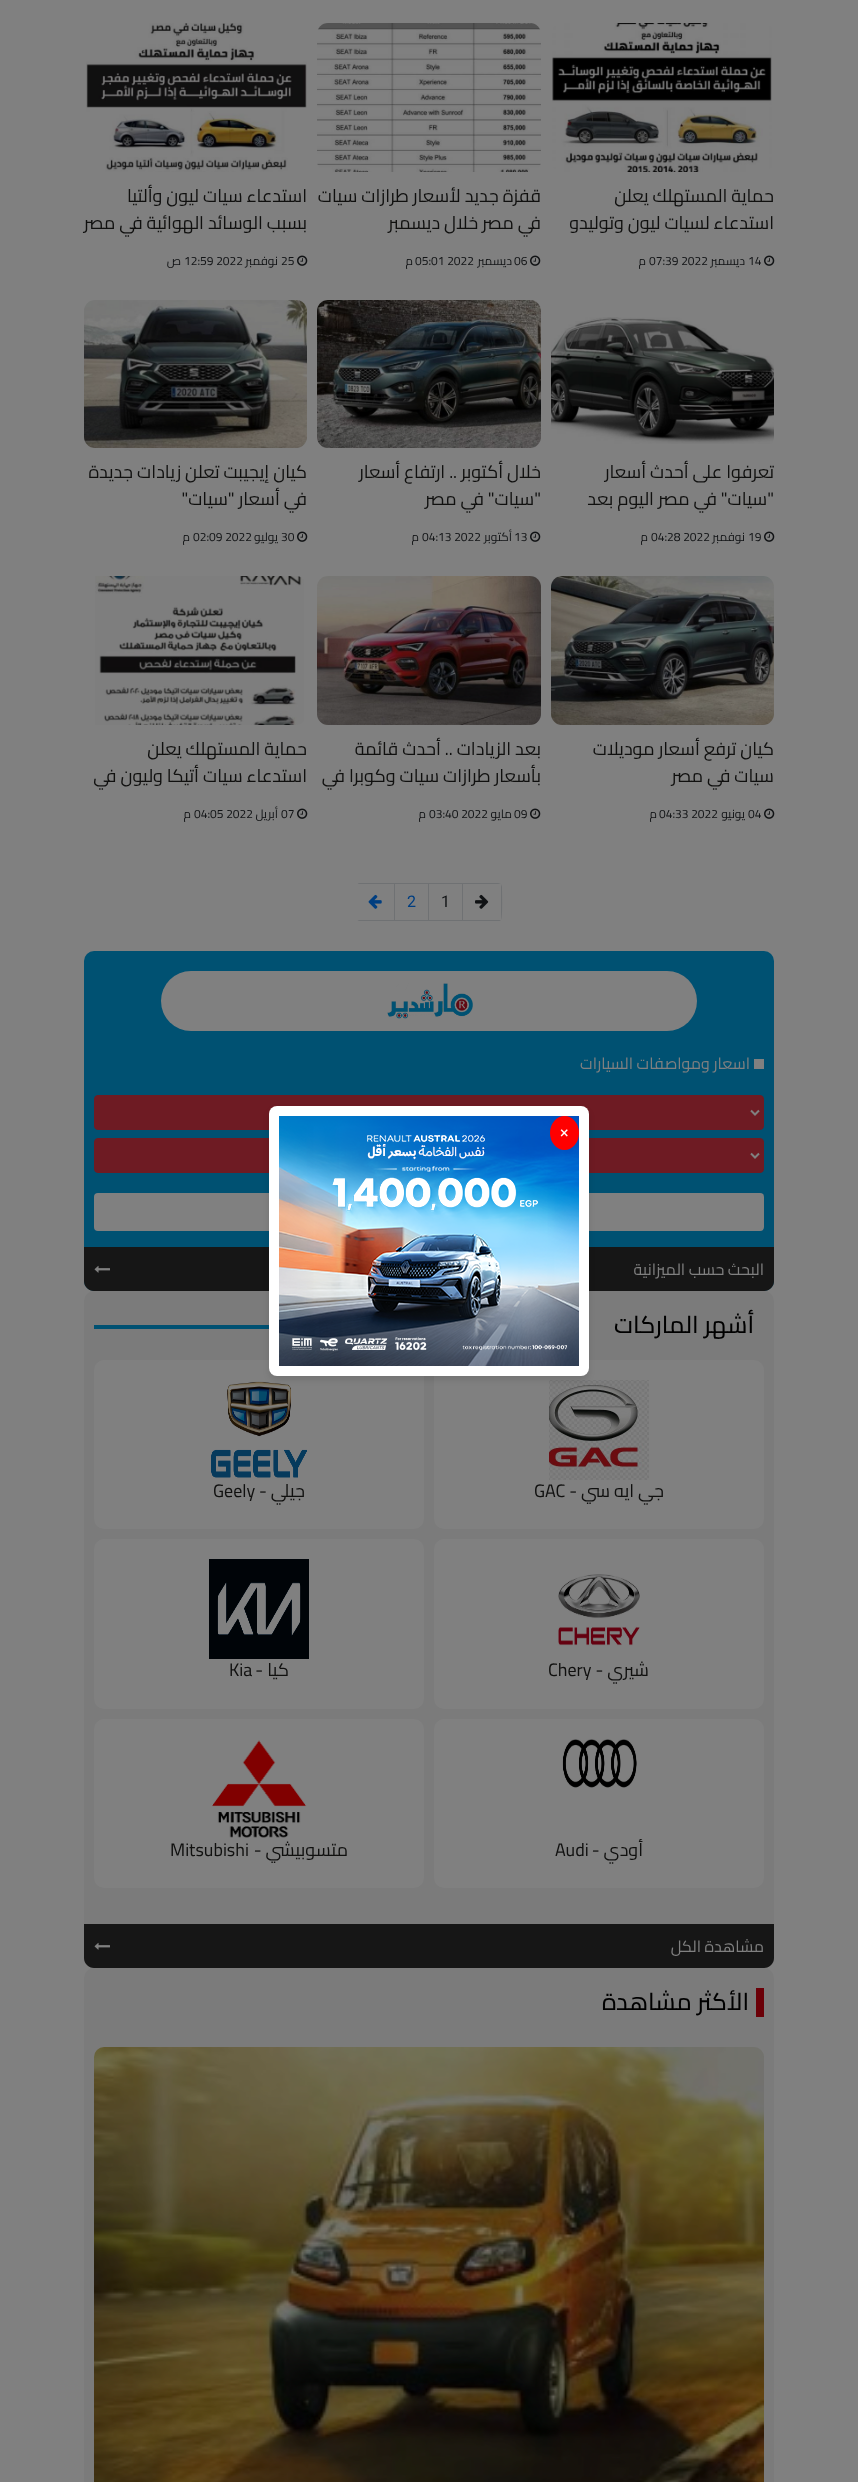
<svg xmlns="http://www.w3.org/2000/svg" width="858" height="2482">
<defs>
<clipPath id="clip1"><rect x="454" y="1839" width="290" height="129"/></clipPath>
</defs>
<rect width="100%" height="100%" fill="#808080"/>
<image x="552" y="23" width="220" height="149" href="media/1.png"/>
<text x="774" y="202" style="font-family:Cairo;font-size:18px;direction:rtl;fill:#10100f">حماية المستهلك يعلن</text>
<text x="774" y="229" style="font-family:Cairo;font-size:18px;direction:rtl;fill:#10100f">استدعاء لسيات ليون وتوليدو</text>
<image x="764" y="255" width="11" height="11" href="media/2.png"/>
<text x="748" y="265" style="font-family:Cairo;font-size:12px;fill:#111315">14</text>
<text x="745" y="265" style="font-family:Cairo;font-size:12px;direction:rtl;fill:#111315">ديسمبر</text>
<text x="649" y="265" style="font-family:Cairo;font-size:12px;fill:#111315">07:39 2022</text>
<text x="646" y="265" style="font-family:Cairo;font-size:12px;direction:rtl;fill:#111315">م</text>
<image x="317" y="23" width="224" height="149" href="media/3.png"/>
<text x="541" y="202" style="font-family:Cairo;font-size:18px;direction:rtl;fill:#10100f">قفزة جديد لأسعار طرازات سيات</text>
<text x="541" y="229" style="font-family:Cairo;font-size:18px;direction:rtl;fill:#10100f">في مصر خلال ديسمبر</text>
<image x="530" y="255" width="11" height="11" href="media/2.png"/>
<text x="514" y="265" style="font-family:Cairo;font-size:12px;fill:#111315">06</text>
<text x="512" y="265" style="font-family:Cairo;font-size:12px;direction:rtl;fill:#111315">ديسمبر</text>
<text x="415" y="265" style="font-family:Cairo;font-size:12px;fill:#111315">05:01 2022</text>
<text x="413" y="265" style="font-family:Cairo;font-size:12px;direction:rtl;fill:#111315">م</text>
<image x="86" y="23" width="221" height="149" href="media/4.png"/>
<text x="307" y="202" style="font-family:Cairo;font-size:18px;direction:rtl;fill:#10100f">استدعاء سيات ليون وألتيا</text>
<text x="307" y="229" style="font-family:Cairo;font-size:18px;direction:rtl;fill:#10100f">بسبب الوسائد الهوائية في مصر</text>
<image x="297" y="255" width="11" height="11" href="media/2.png"/>
<text x="281" y="265" style="font-family:Cairo;font-size:12px;fill:#111315">25</text>
<text x="278" y="265" style="font-family:Cairo;font-size:12px;direction:rtl;fill:#111315">نوفمبر</text>
<text x="184" y="265" style="font-family:Cairo;font-size:12px;fill:#111315">12:59 2022</text>
<text x="181" y="265" style="font-family:Cairo;font-size:12px;direction:rtl;fill:#111315">ص</text>
<image x="551" y="317" width="223" height="127" href="media/5.png"/>
<text x="774" y="478" style="font-family:Cairo;font-size:18px;direction:rtl;fill:#10100f">تعرفوا على أحدث أسعار</text>
<text x="774" y="505" style="font-family:Cairo;font-size:18px;direction:rtl;fill:#10100f">"سيات" في مصر اليوم بعد</text>
<image x="764" y="531" width="11" height="11" href="media/2.png"/>
<text x="748" y="541" style="font-family:Cairo;font-size:12px;fill:#111315">19</text>
<text x="745" y="541" style="font-family:Cairo;font-size:12px;direction:rtl;fill:#111315">نوفمبر</text>
<text x="651" y="541" style="font-family:Cairo;font-size:12px;fill:#111315">04:28 2022</text>
<text x="648" y="541" style="font-family:Cairo;font-size:12px;direction:rtl;fill:#111315">م</text>
<image x="317" y="300" width="224" height="148" href="media/6.png"/>
<text x="541" y="478" style="font-family:Cairo;font-size:18px;direction:rtl;fill:#10100f">خلال أكتوبر .. ارتفاع أسعار</text>
<text x="541" y="505" style="font-family:Cairo;font-size:18px;direction:rtl;fill:#10100f">"سيات" في مصر</text>
<image x="530" y="531" width="11" height="11" href="media/2.png"/>
<text x="514" y="541" style="font-family:Cairo;font-size:12px;fill:#111315">13</text>
<text x="512" y="541" style="font-family:Cairo;font-size:12px;direction:rtl;fill:#111315">أكتوبر</text>
<text x="422" y="541" style="font-family:Cairo;font-size:12px;fill:#111315">04:13 2022</text>
<text x="419" y="541" style="font-family:Cairo;font-size:12px;direction:rtl;fill:#111315">م</text>
<image x="84" y="300" width="223" height="148" href="media/7.png"/>
<text x="307" y="478" style="font-family:Cairo;font-size:18px;direction:rtl;fill:#10100f">كيان إيجيبت تعلن زيادات جديدة</text>
<text x="307" y="505" style="font-family:Cairo;font-size:18px;direction:rtl;fill:#10100f">في أسعار "سيات"</text>
<image x="297" y="531" width="11" height="11" href="media/2.png"/>
<text x="281" y="541" style="font-family:Cairo;font-size:12px;fill:#111315">30</text>
<text x="278" y="541" style="font-family:Cairo;font-size:12px;direction:rtl;fill:#111315">يوليو</text>
<text x="193" y="541" style="font-family:Cairo;font-size:12px;fill:#111315">02:09 2022</text>
<text x="190" y="541" style="font-family:Cairo;font-size:12px;direction:rtl;fill:#111315">م</text>
<image x="551" y="576" width="223" height="149" href="media/8.png"/>
<text x="774" y="755" style="font-family:Cairo;font-size:18px;direction:rtl;fill:#10100f">كيان ترفع أسعار موديلات</text>
<text x="774" y="782" style="font-family:Cairo;font-size:18px;direction:rtl;fill:#10100f">سيات في مصر</text>
<image x="764" y="808" width="11" height="11" href="media/2.png"/>
<text x="748" y="818" style="font-family:Cairo;font-size:12px;fill:#111315">04</text>
<text x="745" y="818" style="font-family:Cairo;font-size:12px;direction:rtl;fill:#111315">يونيو</text>
<text x="659" y="818" style="font-family:Cairo;font-size:12px;fill:#111315">04:33 2022</text>
<text x="657" y="818" style="font-family:Cairo;font-size:12px;direction:rtl;fill:#111315">م</text>
<image x="317" y="576" width="224" height="149" href="media/9.png"/>
<text x="541" y="755" style="font-family:Cairo;font-size:18px;direction:rtl;fill:#10100f">بعد الزيادات .. أحدث قائمة</text>
<text x="541" y="782" style="font-family:Cairo;font-size:18px;direction:rtl;fill:#10100f">بأسعار طرازات سيات وكوبرا في</text>
<image x="530" y="808" width="11" height="11" href="media/2.png"/>
<text x="514" y="818" style="font-family:Cairo;font-size:12px;fill:#111315">09</text>
<text x="512" y="818" style="font-family:Cairo;font-size:12px;direction:rtl;fill:#111315">مايو</text>
<text x="429" y="818" style="font-family:Cairo;font-size:12px;fill:#111315">03:40 2022</text>
<text x="426" y="818" style="font-family:Cairo;font-size:12px;direction:rtl;fill:#111315">م</text>
<image x="95" y="576" width="209" height="149" href="media/10.png"/>
<text x="307" y="755" style="font-family:Cairo;font-size:18px;direction:rtl;fill:#10100f">حماية المستهلك يعلن</text>
<text x="307" y="782" style="font-family:Cairo;font-size:18px;direction:rtl;fill:#10100f">استدعاء سيات أتيكا وليون في</text>
<image x="297" y="808" width="11" height="11" href="media/2.png"/>
<text x="281" y="818" style="font-family:Cairo;font-size:12px;fill:#111315">07</text>
<text x="278" y="818" style="font-family:Cairo;font-size:12px;direction:rtl;fill:#111315">أبريل</text>
<text x="194" y="818" style="font-family:Cairo;font-size:12px;fill:#111315">04:05 2022</text>
<text x="191" y="818" style="font-family:Cairo;font-size:12px;direction:rtl;fill:#111315">م</text>
<path d="M462 883v38h36c1 0 2 0 3-1h-38v-36h38l-3-1zm40 4l-1-3v36c2-3 1-28 1-33z" fill="#6f7173" fill-rule="evenodd"/>
<image x="475" y="894" width="14" height="15" href="media/11.png"/>
<rect x="428.5" y="883.5" width="34" height="37" fill="none" stroke="#6f7173"/>
<text x="441" y="907" style="font-family:Roboto;font-size:16px;fill:#111315">1</text>
<rect x="394.5" y="883.5" width="34" height="37" fill="none" stroke="#6f7173"/>
<text x="407" y="907" style="font-family:Roboto;font-size:16px;fill:#003e80">2</text>
<path d="M360 883h35v38h-35c-2 0-4-2-4-4v-30c0-2 2-4 4-4z" fill="#808080"/>
<path d="M360 883c-1 0-2 .5-2.5 1h36.5v36h-36.5c.5 .5 1.5 1 2.5 1h35v-38z" fill="#6f7173"/>
<image x="368" y="894" width="14" height="15" href="media/12.png"/>
<rect x="84" y="951" width="690" height="340" rx="10" fill="#005172"/>
<rect x="161" y="971" width="536" height="60" rx="30" fill="#808080"/>
<image x="387" y="983" width="86" height="36" href="media/13.png"/>
<rect x="754" y="1059" width="10" height="10" fill="#808080"/>
<text x="750" y="1069" style="font-family:Cairo;font-size:16px;direction:rtl;fill:#808080">اسعار ومواصفات السيارات</text>
<rect x="94.5" y="1095.5" width="669" height="34" rx="3.5" fill="#6e1b23" stroke="#6e1b23"/>
<path d="M751 1110.5l4 4l4-4" fill="none" stroke="#808080" stroke-width="2"/>
<rect x="94.5" y="1138.5" width="669" height="34" rx="3.5" fill="#6e1b23" stroke="#6e1b23"/>
<path d="M751 1153.5l4 4l4-4" fill="none" stroke="#808080" stroke-width="2"/>
<rect x="94" y="1193" width="670" height="38" rx="4" fill="#808080"/>
<path d="M84 1247h690v34c0 5.5-4.5 10-10 10h-670c-5.5 0-10-4.5-10-10z" fill="#161616"/>
<text x="764" y="1275" style="font-family:Cairo;font-size:16px;direction:rtl;fill:#808080">البحث حسب الميزانية</text>
<image x="94" y="1265" width="16" height="8" href="media/14.png"/>
<rect x="84" y="1291" width="690" height="677" rx="10" fill="#7b7b7b"/>
<text x="754" y="1333" style="font-family:Cairo;font-size:24px;font-weight:500;direction:rtl;fill:#000">أشهر الماركات</text>
<rect x="94" y="1325" width="175" height="4" fill="#005172"/>
<rect x="434" y="1360" width="330" height="169" rx="10" fill="#808080"/>
<image x="549" y="1380" width="100" height="100" href="media/15.png"/>
<text x="664" y="1497" style="font-family:Cairo;font-size:18px;direction:rtl;fill:#10100f">جي ايه سي -</text>
<text x="534" y="1497" style="font-family:Cairo;font-size:18px;fill:#10100f">GAC</text>
<rect x="94" y="1360" width="330" height="169" rx="10" fill="#808080"/>
<image x="211" y="1381" width="96" height="97" href="media/16.png"/>
<text x="305" y="1497" style="font-family:Cairo;font-size:18px;direction:rtl;fill:#10100f">جيلي -</text>
<text x="213" y="1497" style="font-family:Cairo;font-size:18px;fill:#10100f">Geely</text>
<rect x="434" y="1539" width="330" height="170" rx="10" fill="#808080"/>
<image x="558" y="1574" width="82" height="72" href="media/17.png"/>
<text x="649" y="1676" style="font-family:Cairo;font-size:18px;direction:rtl;fill:#10100f">شيري -</text>
<text x="548" y="1676" style="font-family:Cairo;font-size:18px;fill:#10100f">Chery</text>
<rect x="94" y="1539" width="330" height="170" rx="10" fill="#808080"/>
<image x="209" y="1559" width="100" height="100" href="media/18.png"/>
<text x="289" y="1676" style="font-family:Cairo;font-size:18px;direction:rtl;fill:#10100f">كيا -</text>
<text x="229" y="1676" style="font-family:Cairo;font-size:18px;fill:#10100f">Kia</text>
<rect x="434" y="1719" width="330" height="169" rx="10" fill="#808080"/>
<image x="562" y="1739" width="75" height="49" href="media/19.png"/>
<g clip-path="url(#clip1)">
<text x="643" y="1856" style="font-family:Cairo;font-size:18px;direction:rtl;fill:#10100f">أودي -</text>
</g>
<text x="555" y="1856" style="font-family:Cairo;font-size:18px;fill:#10100f">Audi</text>
<rect x="94" y="1719" width="330" height="169" rx="10" fill="#808080"/>
<image x="212" y="1740" width="95" height="98" href="media/20.png"/>
<text x="348" y="1856" style="font-family:Cairo;font-size:18px;direction:rtl;fill:#10100f">متسوبيشي -</text>
<text x="170" y="1856" style="font-family:Cairo;font-size:18px;fill:#10100f">Mitsubishi</text>
<path d="M84 1924h690v34c0 5.5-4.5 10-10 10h-670c-5.5 0-10-4.5-10-10z" fill="#161616"/>
<text x="764" y="1952" style="font-family:Cairo;font-size:16px;direction:rtl;fill:#808080">مشاهدة الكل</text>
<image x="94" y="1942" width="16" height="8" href="media/14.png"/>
<rect x="84" y="1968" width="690" height="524" rx="10" fill="#7b7b7b"/>
<rect x="756" y="1988" width="8" height="29" fill="#6b0008"/>
<text x="749" y="2010" style="font-family:Cairo;font-size:24px;font-weight:500;direction:rtl;fill:#000">الأكثر مشاهدة</text>
<image x="94" y="2047" width="670" height="435" href="media/21.png"/>
<rect x="269" y="1110" width="320" height="270" rx="8" fill="#0000001a" filter="blur(3px)"/>
<rect x="269" y="1106" width="320" height="270" rx="8" fill="#fff"/>
<image x="279" y="1116" width="300" height="250" href="media/22.png"/>
<ellipse cx="564.5" cy="1133" rx="14.5" ry="17" fill="#f00"/>
<text x="560" y="1138" style="font-family:Roboto;font-size:16px;fill:#fff">×</text>
</svg>
